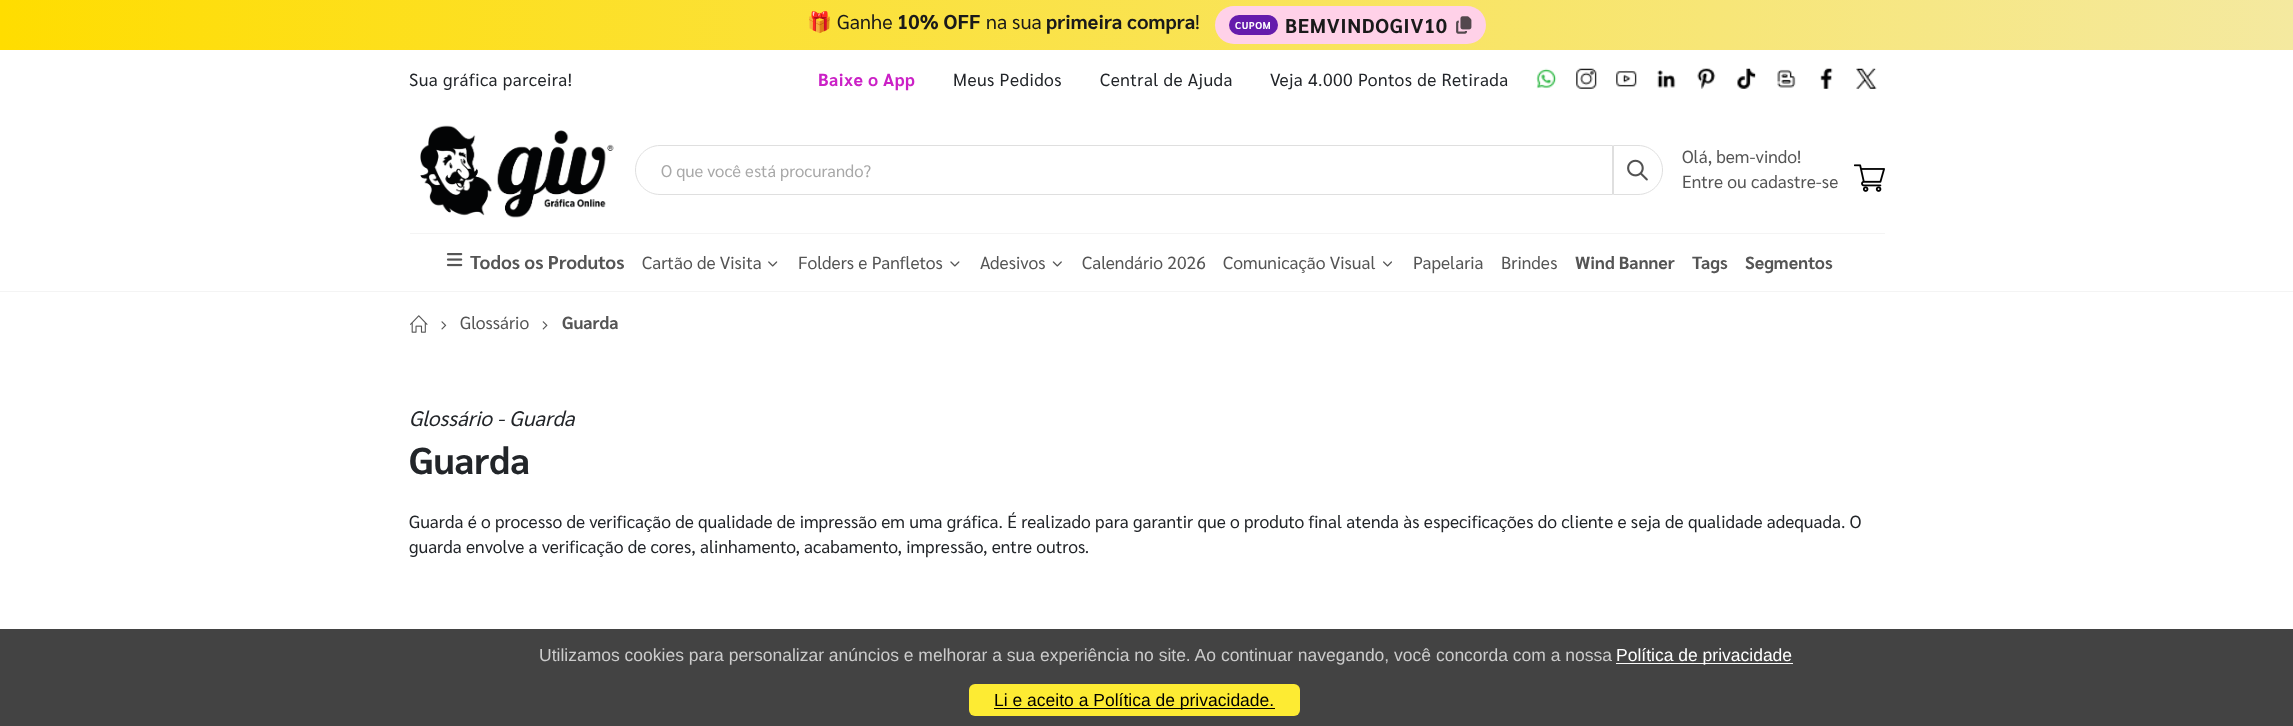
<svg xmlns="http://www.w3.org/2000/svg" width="2293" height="726">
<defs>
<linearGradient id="g1" gradientUnits="userSpaceOnUse" x1="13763" y1="150" x2="0" y2="150"><stop offset="0" stop-color="#fd0"/><stop offset="0.25" stop-color="#efefef"/><stop offset="0.5" stop-color="#c59ae7"/><stop offset="0.75" stop-color="#efefef"/><stop offset="1" stop-color="#fd0"/></linearGradient>
</defs>
<rect width="100%" height="100%" fill="#fff"/>
<rect width="2293" height="50" fill="url(#g1)"/>
<text x="807" y="29" style="font-family:Noto Color Emoji;font-size:20px;fill:#1a1a1a">🎁</text>
<text x="837" y="29" style="font-family:Sarabun;font-size:20px;fill:#1a1a1a">Ganhe</text>
<text x="897" y="29" style="font-family:Sarabun;font-size:20px;font-weight:bold;fill:#1a1a1a">10% OFF</text>
<text x="986" y="29" style="font-family:Sarabun;font-size:20px;fill:#1a1a1a">na sua</text>
<text x="1046" y="29" style="font-family:Sarabun;font-size:20px;font-weight:bold;fill:#1a1a1a">primeira compra</text>
<text x="1195" y="29" style="font-family:Sarabun;font-size:20px;fill:#1a1a1a">!</text>
<rect x="1215" y="6" width="271" height="38" rx="19" fill="#ffd1e8"/>
<rect x="1229" y="15" width="49" height="20" rx="10" fill="#651bac"/>
<text x="1235" y="29" style="font-family:Sarabun;font-size:10px;font-weight:bold;letter-spacing:0.5px;fill:#fff">CUPOM</text>
<text x="1285" y="33" style="font-family:Sarabun;font-size:20px;font-weight:bold;letter-spacing:0.6px;fill:#1a1a1a">BEMVINDOGIV10</text>
<image x="1456" y="16" width="16" height="18" href="media/1.png"/>
<rect y="291" width="2293" height="1" fill="#f4f4f4"/>
<text x="409" y="86" style="font-family:Sarabun;font-size:17.5px;letter-spacing:0.45px;fill:#222529">Sua gráfica parceira!</text>
<text x="818" y="86" style="font-family:Sarabun;font-size:17.5px;font-weight:bold;letter-spacing:0.45px;fill:#cb21c6">Baixe o App</text>
<text x="953" y="86" style="font-family:Sarabun;font-size:17.5px;letter-spacing:0.45px;fill:#222529">Meus Pedidos</text>
<text x="1100" y="86" style="font-family:Sarabun;font-size:17.5px;letter-spacing:0.45px;fill:#222529">Central de Ajuda</text>
<text x="1270" y="86" style="font-family:Sarabun;font-size:17.5px;letter-spacing:0.45px;fill:#222529">Veja 4.000 Pontos de Retirada</text>
<image x="1536" y="68" width="21" height="21" href="media/2.png"/>
<image x="1576" y="68" width="21" height="21" href="media/3.png"/>
<image x="1616" y="70" width="21" height="17" href="media/4.png"/>
<image x="1657" y="70" width="19" height="18" href="media/5.png"/>
<image x="1697" y="68" width="19" height="21" href="media/6.png"/>
<image x="1737" y="68" width="19" height="21" href="media/7.png"/>
<image x="1777" y="69" width="19" height="19" href="media/8.png"/>
<image x="1820" y="68" width="13" height="21" href="media/9.png"/>
<image x="1856" y="68" width="21" height="21" href="media/10.png"/>
<image x="420" y="125" width="194" height="93" href="media/11.png"/>
<path d="M660 145.5h952.5v49h-952.5c-13.5 0-24.5-11-24.5-24.5c0-13.5 11-24.5 24.5-24.5z" fill="none" stroke="#dfdfdf"/>
<text x="661" y="177" style="font-family:Sarabun;font-size:16.75px;fill:#a8a8a8">O que você está procurando?</text>
<path d="M1613.5 145.5h24.5c13.5 0 24.5 11 24.5 24.5c0 13.5-11 24.5-24.5 24.5h-24.5z" fill="none" stroke="#dfdfdf"/>
<image x="1627" y="159" width="21" height="22" href="media/12.png"/>
<text x="1682" y="163" style="font-family:Sarabun;font-size:17.5px;fill:#555">Olá, bem-vindo!</text>
<text x="1682" y="188" style="font-family:Sarabun;font-size:17.5px;fill:#555">Entre ou cadastre-se</text>
<image x="1854" y="164" width="31" height="28" href="media/13.png"/>
<rect x="410" y="233" width="1475" height="1" fill="#f4f4f4"/>
<image x="446" y="253" width="17" height="14" href="media/14.png"/>
<text x="470" y="269" style="font-family:Sarabun;font-size:18.75px;font-weight:bold;fill:#555">Todos os Produtos</text>
<text x="642" y="269" style="font-family:Sarabun;font-size:17.5px;fill:#555">Cartão de Visita</text>
<image x="768" y="261" width="10" height="6" href="media/15.png"/>
<text x="798" y="269" style="font-family:Sarabun;font-size:17.5px;fill:#555">Folders e Panfletos</text>
<image x="950" y="261" width="10" height="6" href="media/16.png"/>
<text x="980" y="269" style="font-family:Sarabun;font-size:17.5px;fill:#555">Adesivos</text>
<image x="1052" y="261" width="10" height="6" href="media/17.png"/>
<text x="1082" y="269" style="font-family:Sarabun;font-size:17.5px;fill:#555">Calendário 2026</text>
<text x="1223" y="269" style="font-family:Sarabun;font-size:17.5px;fill:#555">Comunicação Visual</text>
<image x="1383" y="261" width="9" height="6" href="media/18.png"/>
<text x="1413" y="269" style="font-family:Sarabun;font-size:17.5px;fill:#555">Papelaria</text>
<text x="1501" y="269" style="font-family:Sarabun;font-size:17.5px;fill:#555">Brindes</text>
<text x="1575" y="269" style="font-family:Sarabun;font-size:17.5px;font-weight:bold;fill:#555">Wind Banner</text>
<text x="1692" y="269" style="font-family:Sarabun;font-size:17.5px;font-weight:bold;fill:#555">Tags</text>
<text x="1745" y="269" style="font-family:Sarabun;font-size:17.5px;font-weight:bold;fill:#555">Segmentos</text>
<image x="410" y="315" width="18" height="18" href="media/19.png"/>
<image x="441" y="321" width="6" height="9" href="media/20.png"/>
<text x="460" y="329" style="font-family:Sarabun;font-size:17.5px;fill:#555">Glossário</text>
<image x="542" y="321" width="6" height="9" href="media/21.png"/>
<text x="562" y="329" style="font-family:Sarabun;font-size:17.5px;font-weight:bold;fill:#555">Guarda</text>
<text x="409" y="426" style="font-family:Sarabun;font-size:21px;font-style:italic;fill:#222529">Glossário - Guarda</text>
<text x="409" y="474" style="font-family:Sarabun;font-size:37.5px;font-weight:bold;fill:#222529">Guarda</text>
<text x="409" y="528" style="font-family:Sarabun;font-size:17.5px;fill:#222529">Guarda é o processo de verificação de qualidade de impressão em uma gráfica. É realizado para garantir que o produto final atenda às especificações do cliente e seja de qualidade adequada. O</text>
<text x="409" y="553" style="font-family:Sarabun;font-size:17.5px;fill:#222529">guarda envolve a verificação de cores, alinhamento, acabamento, impressão, entre outros.</text>
<rect y="629" width="2293" height="97" fill="#434343"/>
<text x="539" y="661" style="font-family:Liberation Sans;font-size:17.5px;fill:#ccc">Utilizamos cookies para personalizar anúncios e melhorar a sua experiência no site. Ao continuar navegando, você concorda com a nossa</text>
<rect x="1616" y="663" width="177" height="1" fill="#fafafa"/>
<text x="1616" y="661" style="font-family:Liberation Sans;font-size:17.5px;fill:#fff">Política de privacidade</text>
<rect x="969" y="684" width="331" height="32" rx="6" fill="#fdeb33"/>
<rect x="994" y="708" width="281" height="1" fill="#000"/>
<text x="994" y="706" style="font-family:Liberation Sans;font-size:17.5px;fill:#000">Li e aceito a Política de privacidade.</text>
</svg>
